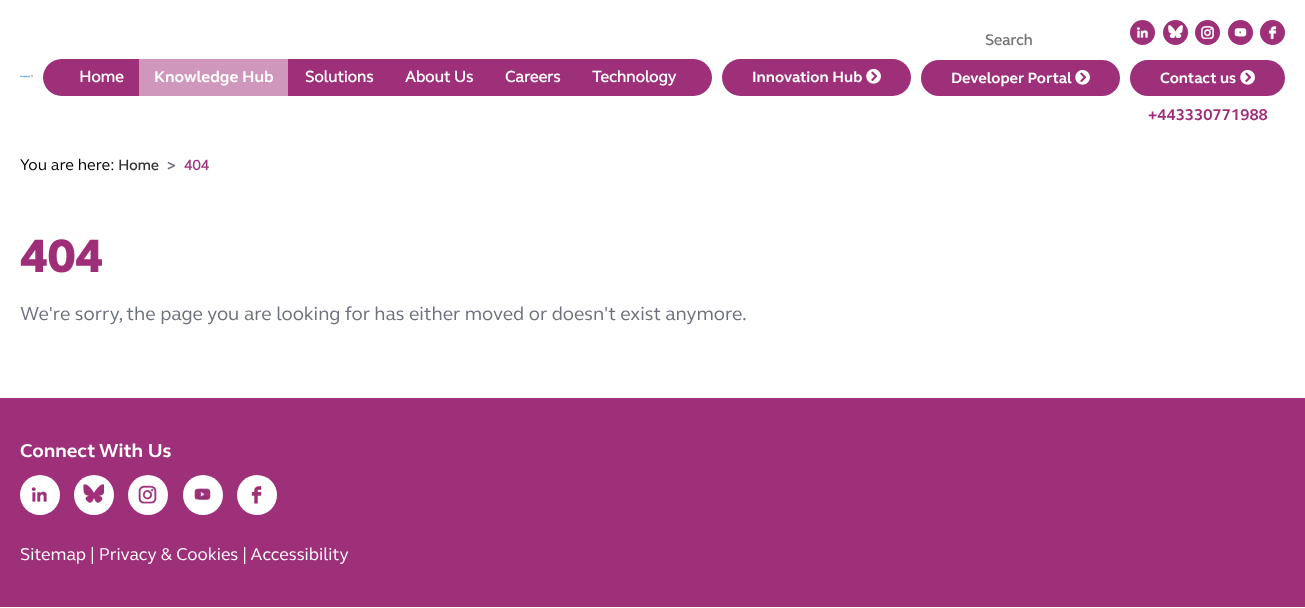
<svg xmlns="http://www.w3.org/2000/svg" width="1305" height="608">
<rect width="100%" height="100%" fill="#fff"/>
<image x="20" y="75" width="13" height="3" href="media/1.png"/>
<path d="M61.5 59h77.5v37h-77.5c-10 0-18.5-8.5-18.5-18.5c0-10 8.5-18.5 18.5-18.5z" fill="#9e2f79"/>
<text x="79" y="82" style="font-family:'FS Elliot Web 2';font-size:16px;font-weight:bold;fill:#fff">Home</text>
<rect x="139" y="59" width="149" height="37" fill="#cf97bc"/>
<text x="154" y="82" style="font-family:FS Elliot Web;font-size:16px;font-weight:bold;fill:#fff">Knowledge Hub</text>
<rect x="288" y="59" width="288" height="37" fill="#9e2f79"/>
<text x="305" y="82" style="font-family:'FS Elliot Web 2';font-size:16px;font-weight:bold;fill:#fff">Solutions</text>
<text x="405" y="82" style="font-family:'FS Elliot Web 2';font-size:16px;font-weight:bold;fill:#fff">About Us</text>
<text x="505" y="82" style="font-family:'FS Elliot Web 2';font-size:16px;font-weight:bold;fill:#fff">Careers</text>
<path d="M576 59h117.5c10 0 18.5 8.5 18.5 18.5c0 10-8.5 18.5-18.5 18.5h-117.5z" fill="#9e2f79"/>
<text x="592" y="82" style="font-family:'FS Elliot Web 2';font-size:16px;font-weight:bold;fill:#fff">Technology</text>
<rect x="722" y="59" width="189" height="37" rx="18.5" fill="#9e2f79"/>
<text x="752" y="82" style="font-family:FS Elliot Web;font-size:15.25px;font-weight:bold;fill:#fff">Innovation Hub</text>
<image x="866" y="68" width="15" height="16" href="media/2.png"/>
<text x="985" y="45" style="font-family:'FS Elliot Web 2';font-size:15.25px;font-weight:bold;fill:#757575">Search</text>
<rect x="921" y="60" width="199" height="36" rx="18" fill="#9e2f79"/>
<text x="951" y="83" style="font-family:FS Elliot Web;font-size:15.25px;font-weight:bold;fill:#fff">Developer Portal</text>
<image x="1075" y="69" width="15" height="16" href="media/2.png"/>
<circle cx="1142.5" cy="32.5" r="12.5" fill="#9e2f79"/>
<image x="1136" y="27" width="12" height="11" href="media/3.png"/>
<circle cx="1175.5" cy="32.5" r="12.5" fill="#9e2f79"/>
<image x="1168" y="25" width="15" height="13" href="media/4.png"/>
<circle cx="1207.5" cy="32.5" r="12.5" fill="#9e2f79"/>
<image x="1200" y="25" width="15" height="15" href="media/5.png"/>
<circle cx="1240.5" cy="32.5" r="12.5" fill="#9e2f79"/>
<image x="1234" y="28" width="13" height="9" href="media/6.png"/>
<circle cx="1272.5" cy="32.5" r="12.5" fill="#9e2f79"/>
<image x="1268" y="26" width="12" height="14" href="media/7.png"/>
<rect x="1130" y="60" width="155" height="36" rx="18" fill="#9e2f79"/>
<text x="1160" y="83" style="font-family:FS Elliot Web;font-size:15.25px;font-weight:bold;fill:#fff">Contact us</text>
<image x="1240" y="69" width="15" height="16" href="media/2.png"/>
<text x="1148" y="120" style="font-family:FS Elliot Web;font-size:16px;font-weight:bold;fill:#9f2e79">+443330771988</text>
<text x="20" y="170" style="font-family:FS Elliot Web;font-size:16px;fill:#000">You are here:</text>
<text x="118" y="170" style="font-family:'FS Elliot Web 2';font-size:14.5px;font-weight:bold;fill:#333">Home</text>
<text x="167" y="170" style="font-family:'FS Elliot Web 2';font-size:14.5px;font-weight:bold;fill:#6b707c">&gt;</text>
<text x="184" y="170" style="font-family:'FS Elliot Web 2';font-size:14.5px;font-weight:bold;fill:#9f2e79">404</text>
<text x="20" y="272" style="font-family:FS Elliot Web;font-size:48px;font-weight:900;fill:#9f2e79">404</text>
<text x="20" y="320" style="font-family:FS Elliot Web;font-size:19.2px;fill:#6b707c">We're sorry, the page you are looking for has either moved or doesn't exist anymore.</text>
<rect y="398" width="1305" height="209" fill="#9e2f79"/>
<text x="20" y="457" style="font-family:FS Elliot Web;font-size:19.2px;font-weight:bold;fill:#fff">Connect With Us</text>
<circle cx="40" cy="495" r="20" fill="#fff"/>
<image x="31" y="487" width="16" height="15" href="media/8.png"/>
<circle cx="94" cy="495" r="20" fill="#fff"/>
<image x="83" y="484" width="21" height="19" href="media/9.png"/>
<circle cx="148" cy="495" r="20" fill="#fff"/>
<image x="138" y="485" width="19" height="19" href="media/10.png"/>
<circle cx="203" cy="495" r="20" fill="#fff"/>
<image x="194" y="488" width="17" height="13" href="media/11.png"/>
<circle cx="257" cy="495" r="20" fill="#fff"/>
<image x="251" y="485" width="11" height="19" href="media/12.png"/>
<text x="20" y="560" style="font-family:FS Elliot Web;font-size:17.6px;fill:#fff">Sitemap | Privacy &amp; Cookies | Accessibility</text>
</svg>
